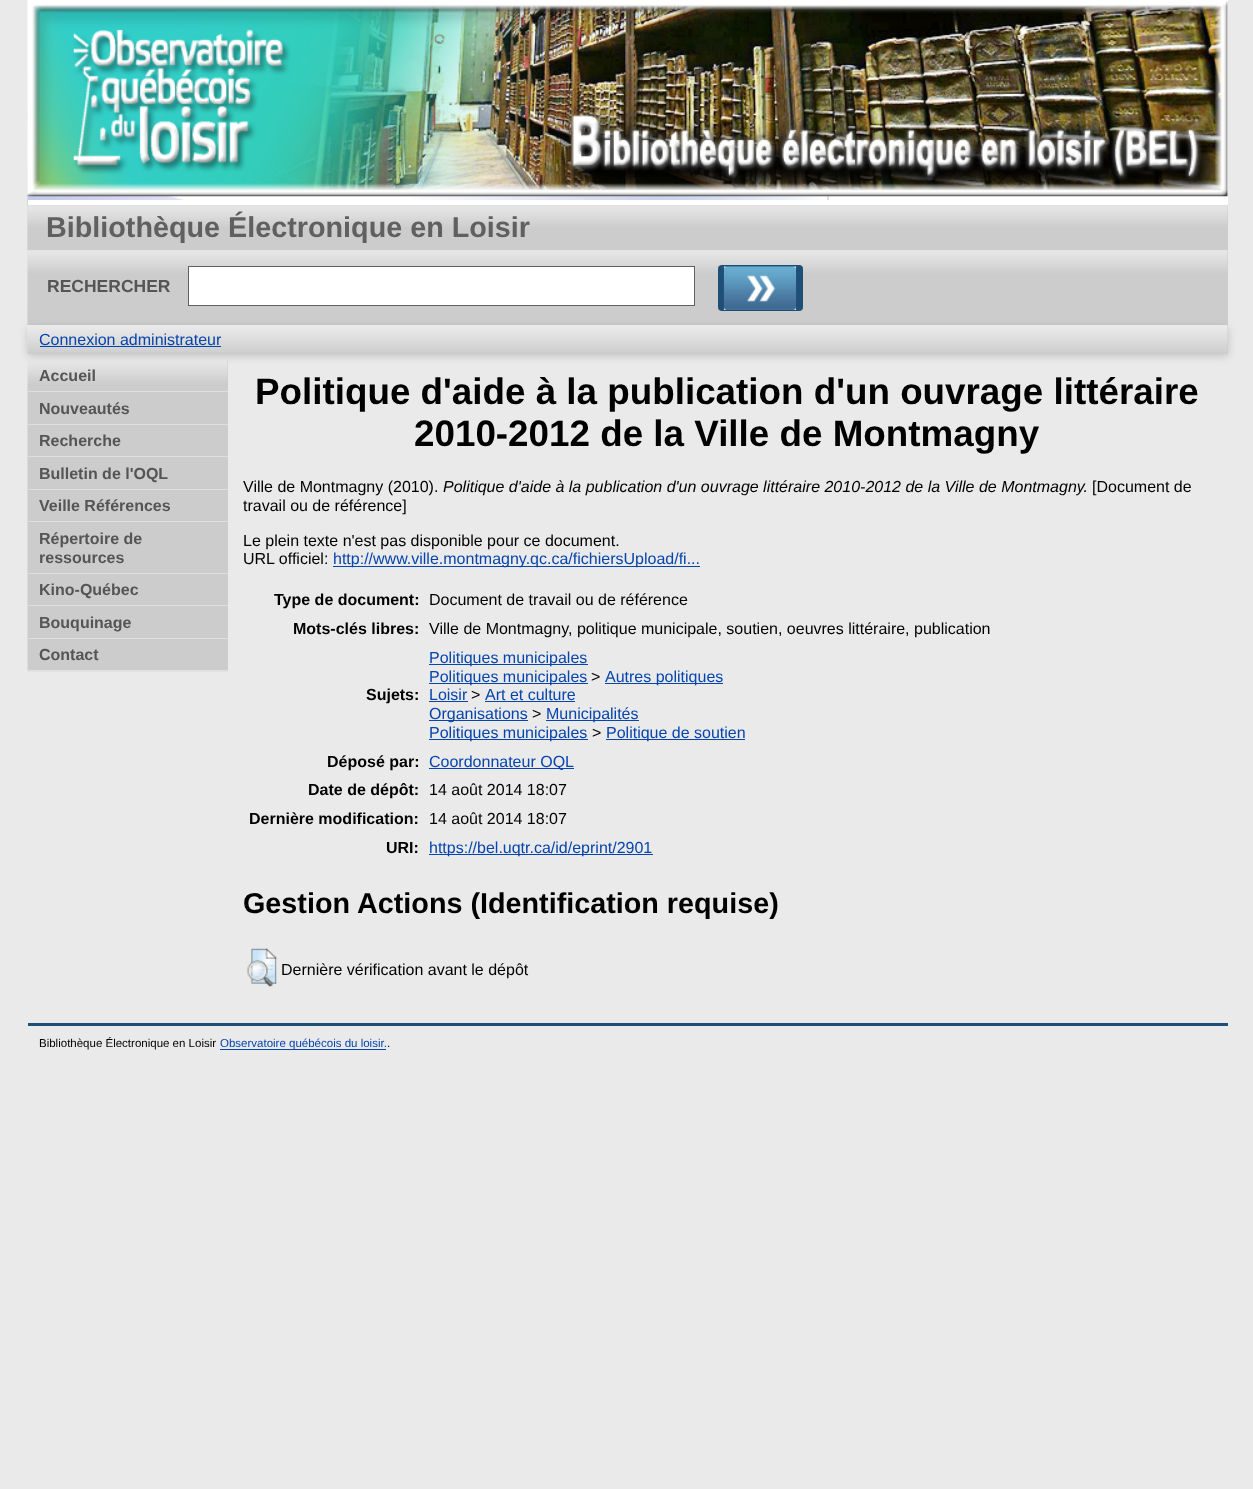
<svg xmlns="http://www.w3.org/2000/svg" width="1253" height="1489">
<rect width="100%" height="100%" fill="#eaeaea"/>
<rect x="28" width="1200" height="200" fill="#fff"/>
<image x="27" y="79" width="802" height="275" href="media/1.png"/>
<image x="27" y="0" width="1201" height="197" href="media/2.png"/>
<rect x="1227" y="205" width="1" height="120" fill="#ccc"/>
<image x="27" y="200" width="1201" height="50" href="media/3.png"/>
<rect x="28" y="200" width="1200" height="5" fill="#fff"/>
<text x="46" y="237" style="font-family:Liberation Sans;font-size:28.75px;font-weight:bold;fill:#606060">Bibliothèque Électronique en Loisir</text>
<image x="27" y="250" width="1201" height="75" href="media/4.png"/>
<text x="47" y="292" style="font-family:Liberation Sans;font-size:17.5px;font-weight:bold;fill:#555">RECHERCHER</text>
<rect x="188.5" y="266.5" width="506" height="39" fill="#fff" stroke="#606060"/>
<rect x="718" y="265" width="85" height="46" rx="4" fill="#1f4f76"/>
<image x="723" y="266" width="74" height="44" href="media/5.png"/>
<rect x="28" y="328" width="1200" height="28" fill="#6464644d" filter="blur(4px)"/>
<rect x="28" y="325" width="1200" height="29" fill="#ccc"/>
<image x="27" y="325" width="1201" height="27" href="media/6.png"/>
<text x="39" y="345" style="font-family:Liberation Sans;font-size:16px;fill:#0645ad">Connexion administrateur</text>
<rect x="40" y="346" width="181" height="1" fill="#0645ad"/>
<rect x="227" y="360" width="1" height="310" fill="#ccc"/>
<image x="27" y="360" width="201" height="312" href="media/7.png"/>
<rect x="28" y="391" width="200" height="1" fill="#dfdfdf"/>
<text x="39" y="381" style="font-family:Liberation Sans;font-size:16px;font-weight:bold;fill:#555">Accueil</text>
<rect x="28" y="424" width="200" height="1" fill="#dfdfdf"/>
<text x="39" y="414" style="font-family:Liberation Sans;font-size:16px;font-weight:bold;fill:#555">Nouveautés</text>
<rect x="28" y="456" width="200" height="1" fill="#dfdfdf"/>
<text x="39" y="446" style="font-family:Liberation Sans;font-size:16px;font-weight:bold;fill:#555">Recherche</text>
<rect x="28" y="489" width="200" height="1" fill="#dfdfdf"/>
<text x="39" y="479" style="font-family:Liberation Sans;font-size:16px;font-weight:bold;fill:#555">Bulletin de l'OQL</text>
<rect x="28" y="521" width="200" height="1" fill="#dfdfdf"/>
<text x="39" y="511" style="font-family:Liberation Sans;font-size:16px;font-weight:bold;fill:#555">Veille Références</text>
<rect x="28" y="573" width="200" height="1" fill="#dfdfdf"/>
<text x="39" y="544" style="font-family:Liberation Sans;font-size:16px;font-weight:bold;fill:#555">Répertoire de</text>
<text x="39" y="563" style="font-family:Liberation Sans;font-size:16px;font-weight:bold;fill:#555">ressources</text>
<rect x="28" y="605" width="200" height="1" fill="#dfdfdf"/>
<text x="39" y="595" style="font-family:Liberation Sans;font-size:16px;font-weight:bold;fill:#555">Kino-Québec</text>
<rect x="28" y="638" width="200" height="1" fill="#dfdfdf"/>
<text x="39" y="628" style="font-family:Liberation Sans;font-size:16px;font-weight:bold;fill:#555">Bouquinage</text>
<rect x="28" y="670" width="200" height="1" fill="#dfdfdf"/>
<text x="39" y="660" style="font-family:Liberation Sans;font-size:16px;font-weight:bold;fill:#555">Contact</text>
<text x="255" y="404" style="font-family:Liberation Sans;font-size:36.8px;font-weight:bold;fill:#000">Politique d'aide à la publication d'un ouvrage littéraire</text>
<text x="414" y="446" style="font-family:Liberation Sans;font-size:36.8px;font-weight:bold;fill:#000">2010-2012 de la Ville de Montmagny</text>
<text x="243" y="492" style="font-family:Liberation Sans;font-size:16px;fill:#000">Ville de Montmagny (2010).</text>
<text x="443" y="492" style="font-family:Liberation Sans;font-size:16px;font-style:italic;fill:#000">Politique d'aide à la publication d'un ouvrage littéraire 2010-2012 de la Ville de Montmagny.</text>
<text x="1092" y="492" style="font-family:Liberation Sans;font-size:16px;fill:#000">[Document de</text>
<text x="243" y="511" style="font-family:Liberation Sans;font-size:16px;fill:#000">travail ou de référence]</text>
<text x="243" y="546" style="font-family:Liberation Sans;font-size:16px;fill:#000">Le plein texte n'est pas disponible pour ce document.</text>
<text x="243" y="564" style="font-family:Liberation Sans;font-size:16px;fill:#000">URL officiel:</text>
<rect x="333" y="566" width="367" height="1" fill="#0645ad"/>
<text x="333" y="564" style="font-family:Liberation Sans;font-size:16px;fill:#0645ad">http://www.ville.montmagny.qc.ca/fichiersUpload/fi...</text>
<text x="274" y="605" style="font-family:Liberation Sans;font-size:16px;font-weight:bold;fill:#000">Type de document:</text>
<text x="429" y="605" style="font-family:Liberation Sans;font-size:16px;fill:#000">Document de travail ou de référence</text>
<text x="293" y="634" style="font-family:Liberation Sans;font-size:16px;font-weight:bold;fill:#000">Mots-clés libres:</text>
<text x="429" y="634" style="font-family:Liberation Sans;font-size:16px;fill:#000">Ville de Montmagny, politique municipale, soutien, oeuvres littéraire, publication</text>
<text x="366" y="700" style="font-family:Liberation Sans;font-size:16px;font-weight:bold;fill:#000">Sujets:</text>
<rect x="429" y="664" width="159" height="1" fill="#0645ad"/>
<text x="429" y="663" style="font-family:Liberation Sans;font-size:16px;fill:#0645ad">Politiques municipales</text>
<rect x="429" y="683" width="159" height="1" fill="#0645ad"/>
<text x="429" y="682" style="font-family:Liberation Sans;font-size:16px;fill:#0645ad">Politiques municipales</text>
<text x="591" y="682" style="font-family:Liberation Sans;font-size:16px;fill:#000">&gt;</text>
<rect x="605" y="683" width="118" height="1" fill="#0645ad"/>
<text x="605" y="682" style="font-family:Liberation Sans;font-size:16px;fill:#0645ad">Autres politiques</text>
<text x="429" y="700" style="font-family:Liberation Sans;font-size:16px;fill:#0645ad">Loisir</text>
<rect x="429" y="701" width="39" height="1" fill="#0645ad"/>
<text x="471" y="700" style="font-family:Liberation Sans;font-size:16px;fill:#000">&gt;</text>
<text x="485" y="700" style="font-family:Liberation Sans;font-size:16px;fill:#0645ad">Art et culture</text>
<rect x="485" y="701" width="90" height="1" fill="#0645ad"/>
<rect x="429" y="720" width="99" height="1" fill="#0645ad"/>
<text x="429" y="719" style="font-family:Liberation Sans;font-size:16px;fill:#0645ad">Organisations</text>
<text x="532" y="719" style="font-family:Liberation Sans;font-size:16px;fill:#000">&gt;</text>
<rect x="546" y="720" width="93" height="1" fill="#0645ad"/>
<text x="546" y="719" style="font-family:Liberation Sans;font-size:16px;fill:#0645ad">Municipalités</text>
<rect x="429" y="739" width="159" height="1" fill="#0645ad"/>
<text x="429" y="738" style="font-family:Liberation Sans;font-size:16px;fill:#0645ad">Politiques municipales</text>
<text x="592" y="738" style="font-family:Liberation Sans;font-size:16px;fill:#000">&gt;</text>
<rect x="606" y="739" width="139" height="1" fill="#0645ad"/>
<text x="606" y="738" style="font-family:Liberation Sans;font-size:16px;fill:#0645ad">Politique de soutien</text>
<text x="327" y="767" style="font-family:Liberation Sans;font-size:16px;font-weight:bold;fill:#000">Déposé par:</text>
<rect x="429" y="768" width="145" height="1" fill="#0645ad"/>
<text x="429" y="767" style="font-family:Liberation Sans;font-size:16px;fill:#0645ad">Coordonnateur OQL</text>
<text x="308" y="795" style="font-family:Liberation Sans;font-size:16px;font-weight:bold;fill:#000">Date de dépôt:</text>
<text x="429" y="795" style="font-family:Liberation Sans;font-size:16px;fill:#000">14 août 2014 18:07</text>
<text x="249" y="824" style="font-family:Liberation Sans;font-size:16px;font-weight:bold;fill:#000">Dernière modification:</text>
<text x="429" y="824" style="font-family:Liberation Sans;font-size:16px;fill:#000">14 août 2014 18:07</text>
<text x="386" y="853" style="font-family:Liberation Sans;font-size:16px;font-weight:bold;fill:#000">URI:</text>
<rect x="429" y="854" width="224" height="1" fill="#0645ad"/>
<text x="429" y="853" style="font-family:Liberation Sans;font-size:16px;fill:#0645ad">https://bel.uqtr.ca/id/eprint/2901</text>
<text x="243" y="913" style="font-family:Liberation Sans;font-size:28.75px;font-weight:bold;fill:#000">Gestion</text>
<text x="357" y="913" style="font-family:Liberation Sans;font-size:28.75px;font-weight:bold;fill:#000">Actions (Identification requise)</text>
<image x="247" y="948" width="30" height="39" href="media/8.png"/>
<text x="281" y="975" style="font-family:Liberation Sans;font-size:16px;fill:#000">Dernière vérification avant le dépôt</text>
<rect x="28" y="1023" width="1200" height="3" fill="#204f76"/>
<text x="39" y="1047" style="font-family:Liberation Sans;font-size:11.5px;fill:#000">Bibliothèque Électronique en Loisir</text>
<rect x="220" y="1049" width="166" height="1" fill="#0645ad"/>
<text x="220" y="1047" style="font-family:Liberation Sans;font-size:11.5px;fill:#0645ad">Observatoire québécois du loisir.</text>
<text x="387" y="1047" style="font-family:Liberation Sans;font-size:11.5px;fill:#000">.</text>
</svg>
